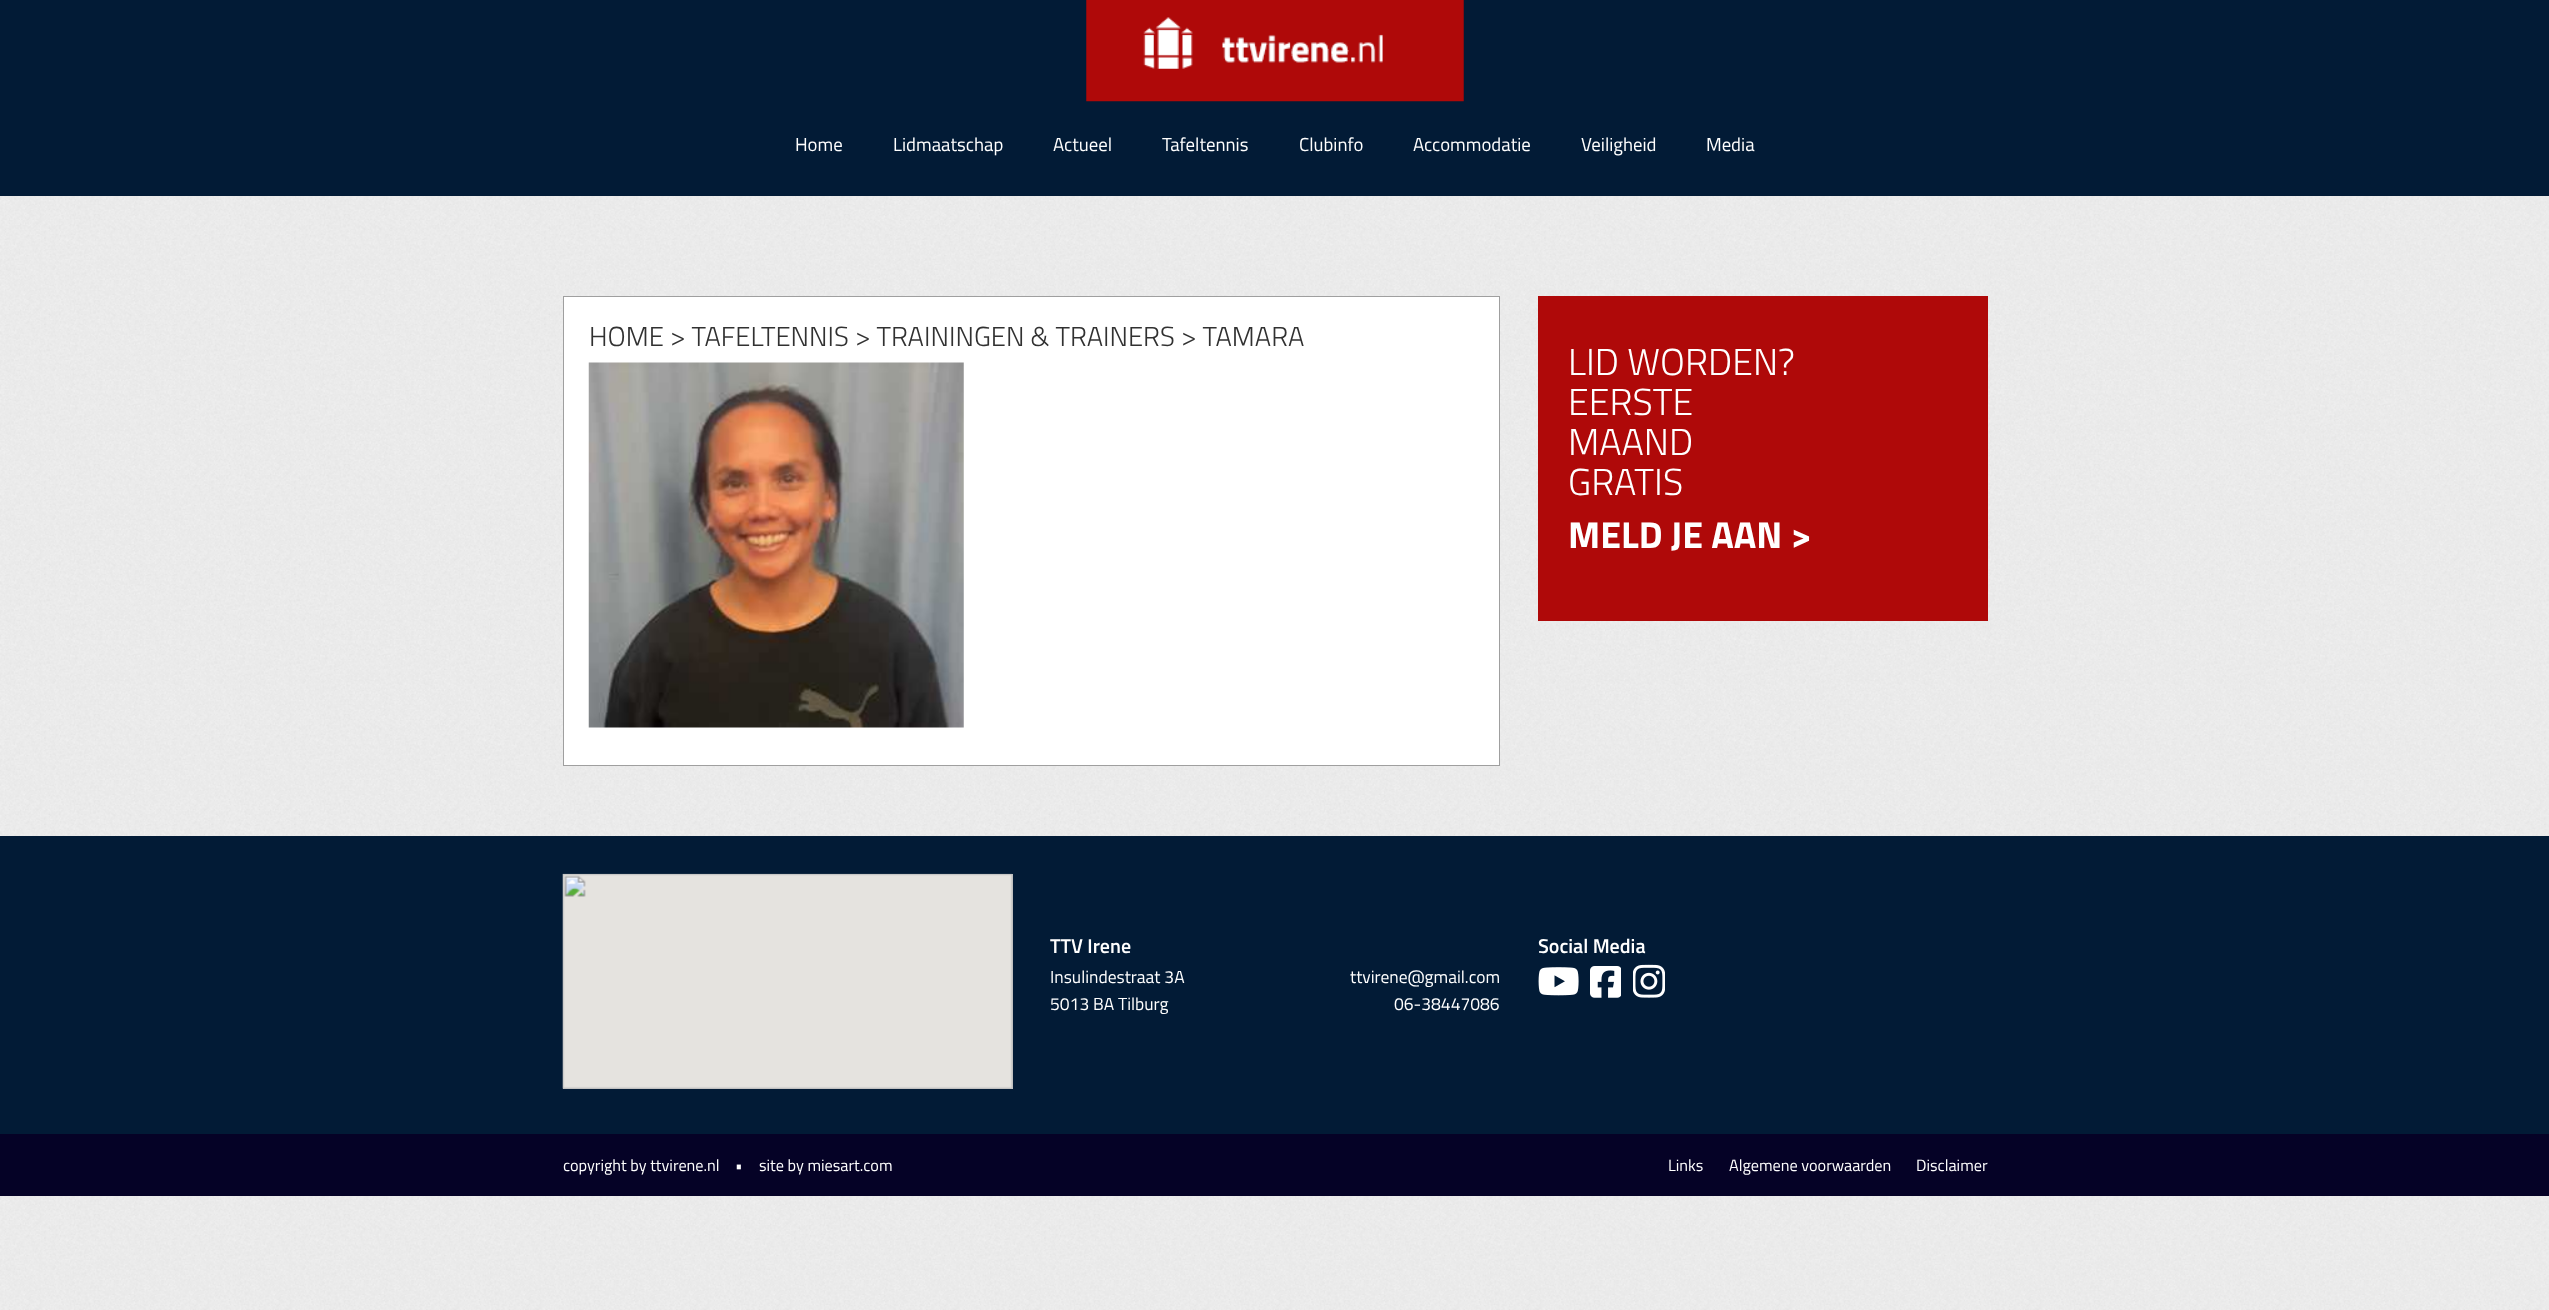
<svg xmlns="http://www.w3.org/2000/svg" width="2549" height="1310">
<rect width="100%" height="100%" fill="#fff"/>
<image x="0" y="196" width="2549" height="1114" href="media/1.png"/>
<rect width="2549" height="196" fill="#021b36"/>
<image x="1086" y="0" width="378" height="102" href="media/2.png"/>
<text x="795" y="151" style="font-family:Titillium Web;font-size:18.75px;fill:#fff">Home</text>
<text x="893" y="151" style="font-family:Titillium Web;font-size:18.75px;fill:#fff">Lidmaatschap</text>
<text x="1053" y="151" style="font-family:Titillium Web;font-size:18.75px;fill:#fff">Actueel</text>
<text x="1162" y="151" style="font-family:Titillium Web;font-size:18.75px;fill:#fff">Tafeltennis</text>
<text x="1299" y="151" style="font-family:Titillium Web;font-size:18.75px;fill:#fff">Clubinfo</text>
<text x="1413" y="151" style="font-family:Titillium Web;font-size:18.75px;fill:#fff">Accommodatie</text>
<text x="1581" y="151" style="font-family:Titillium Web;font-size:18.75px;fill:#fff">Veiligheid</text>
<text x="1706" y="151" style="font-family:Titillium Web;font-size:18.75px;fill:#fff">Media</text>
<rect x="563.5" y="296.5" width="936" height="469" fill="#fff" stroke="#9f9f9f"/>
<text x="589" y="346" style="font-family:Titillium Web;font-size:27.5px;font-weight:300;fill:#313131">HOME &gt; TAFELTENNIS &gt; TRAININGEN &amp; TRAINERS &gt; TAMARA</text>
<image x="588" y="362" width="376" height="366" href="media/3.png"/>
<rect x="1538" y="296" width="450" height="325" fill="#af0909"/>
<text x="1568" y="375" style="font-family:Titillium Web;font-size:37.5px;font-weight:300;fill:#fff">LID WORDEN?</text>
<text x="1568" y="415" style="font-family:Titillium Web;font-size:37.5px;font-weight:300;fill:#fff">EERSTE</text>
<text x="1568" y="455" style="font-family:Titillium Web;font-size:37.5px;font-weight:300;fill:#fff">MAAND</text>
<text x="1568" y="495" style="font-family:Titillium Web;font-size:37.5px;font-weight:300;fill:#fff">GRATIS</text>
<text x="1568" y="548" style="font-family:Titillium Web;font-size:37.5px;font-weight:bold;fill:#fff">MELD JE AAN &gt;</text>
<rect y="836" width="2549" height="298" fill="#021b36"/>
<image x="562" y="873" width="451" height="216" href="media/4.png"/>
<text x="1050" y="953" style="font-family:Titillium Web;font-size:20px;font-weight:600;fill:#fff">TTV Irene</text>
<text x="1050" y="983" style="font-family:Titillium Web;font-size:17.5px;fill:#fff">Insulindestraat 3A</text>
<text x="1350" y="983" style="font-family:Titillium Web;font-size:17.5px;fill:#fff">ttvirene@gmail.com</text>
<text x="1050" y="1010" style="font-family:Titillium Web;font-size:17.5px;fill:#fff">5013 BA Tilburg</text>
<text x="1394" y="1010" style="font-family:Titillium Web;font-size:17.5px;fill:#fff">06-38447086</text>
<text x="1538" y="953" style="font-family:Titillium Web;font-size:20px;font-weight:600;fill:#fff">Social Media</text>
<image x="1538" y="967" width="41" height="29" href="media/5.png"/>
<image x="1590" y="966" width="31" height="32" href="media/6.png"/>
<image x="1633" y="964" width="32" height="34" href="media/7.png"/>
<rect y="1134" width="2549" height="62" fill="#050226"/>
<text x="563" y="1171" style="font-family:Titillium Web;font-size:16.25px;fill:#fff">copyright by ttvirene.nl</text>
<text x="735" y="1171" style="font-family:Titillium Web;font-size:16.25px;fill:#fff">•</text>
<text x="759" y="1171" style="font-family:Titillium Web;font-size:16.25px;fill:#fff">site by miesart.com</text>
<text x="1668" y="1171" style="font-family:Titillium Web;font-size:16.25px;fill:#fff">Links</text>
<text x="1729" y="1171" style="font-family:Titillium Web;font-size:16.25px;fill:#fff">Algemene voorwaarden</text>
<text x="1916" y="1171" style="font-family:Titillium Web;font-size:16.25px;fill:#fff">Disclaimer</text>
</svg>
